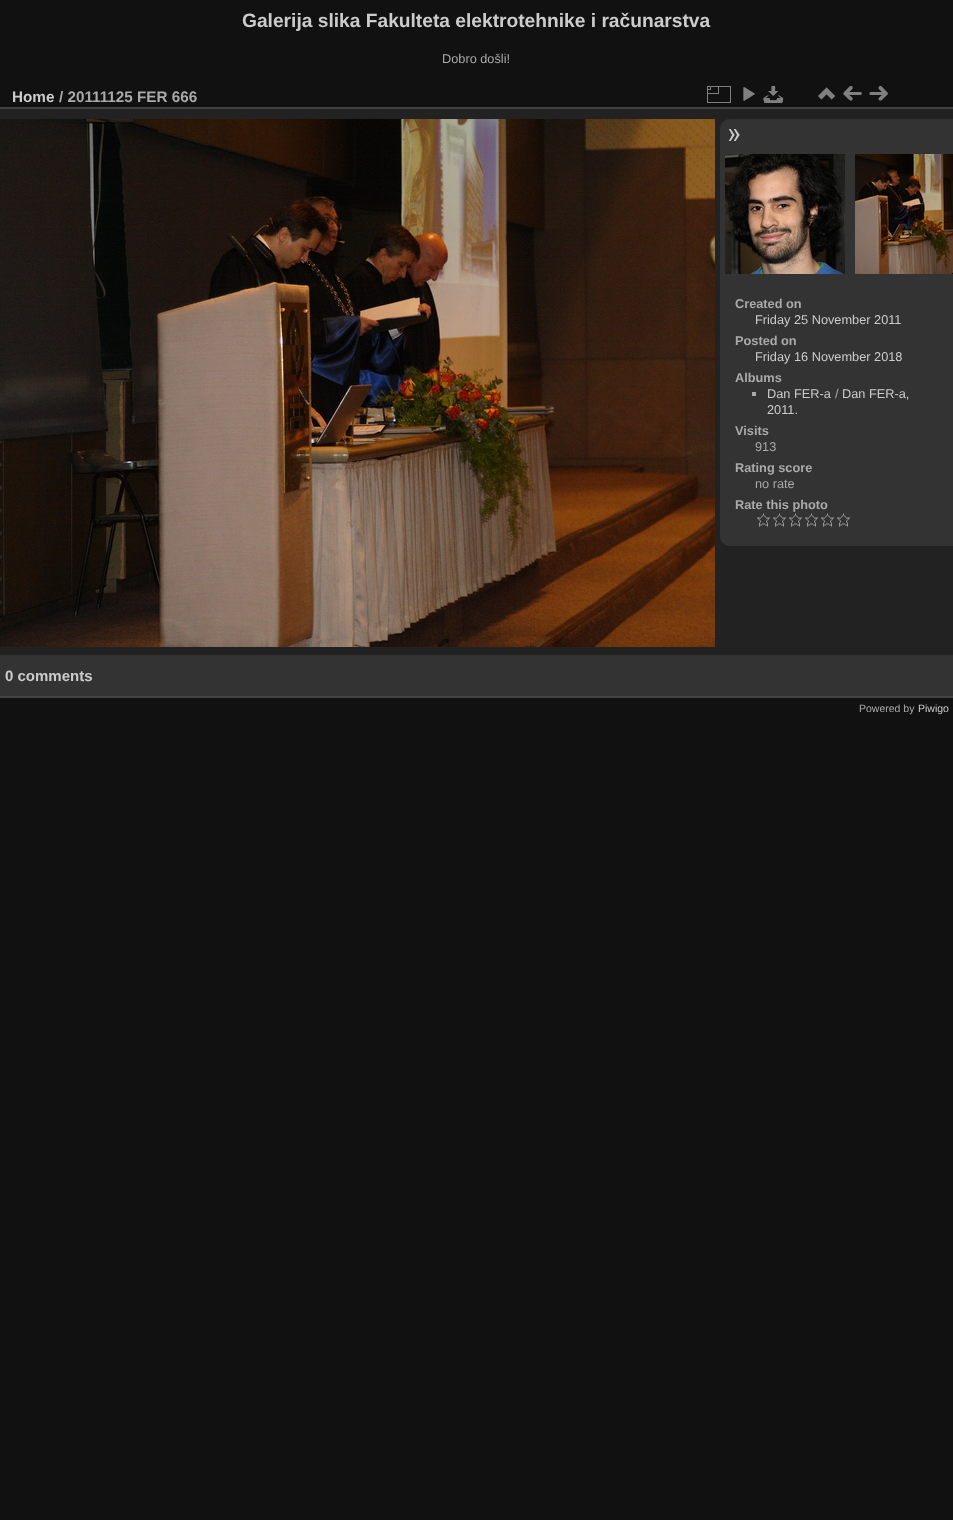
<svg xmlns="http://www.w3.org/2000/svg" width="953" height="1520">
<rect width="100%" height="100%" fill="#111"/>
<text x="242" y="27" style="font-family:Liberation Sans;font-size:19.2px;font-weight:bold;fill:#ccc">Galerija slika Fakulteta elektrotehnike i računarstva</text>
<text x="442" y="63" style="font-family:Liberation Sans;font-size:12.75px;fill:#aaa">Dobro došli!</text>
<rect y="109" width="953" height="546" fill="#222"/>
<rect y="696" width="953" height="2" fill="#444"/>
<rect y="107" width="953" height="2" fill="#444"/>
<text x="12" y="102" style="font-family:Liberation Sans;font-size:15.25px;font-weight:bold;fill:#ccc">Home</text>
<text x="59" y="102" style="font-family:Liberation Sans;font-size:15.25px;font-weight:bold;fill:#aaa">/ 20111125 FER 666</text>
<image x="707" y="86" width="24" height="17" href="media/1.png"/>
<image x="743" y="87" width="12" height="14" href="media/2.png"/>
<image x="763" y="86" width="21" height="17" href="media/3.png"/>
<image x="818" y="87" width="17" height="13" href="media/4.png"/>
<image x="843" y="86" width="19" height="15" href="media/5.png"/>
<image x="869" y="86" width="19" height="15" href="media/6.png"/>
<image x="0" y="119" width="715" height="528" href="media/7.png"/>
<path d="M730 119h223v427h-223c-5.5 0-10-4.5-10-10v-407c0-5.5 4.5-10 10-10z" fill="#333"/>
<image x="728" y="129" width="12" height="12" href="media/8.png"/>
<image x="725" y="154" width="120" height="120" href="media/9.png"/>
<image x="855" y="154" width="98" height="120" href="media/10.png"/>
<text x="735" y="308" style="font-family:Liberation Sans;font-size:12.75px;font-weight:bold;fill:#aaa">Created on</text>
<text x="755" y="324" style="font-family:Liberation Sans;font-size:12.75px;fill:#ccc">Friday 25 November 2011</text>
<text x="735" y="345" style="font-family:Liberation Sans;font-size:12.75px;font-weight:bold;fill:#aaa">Posted on</text>
<text x="755" y="361" style="font-family:Liberation Sans;font-size:12.75px;fill:#ccc">Friday 16 November 2018</text>
<text x="735" y="382" style="font-family:Liberation Sans;font-size:12.75px;font-weight:bold;fill:#aaa">Albums</text>
<rect x="752" y="392" width="4" height="4" fill="#aaa"/>
<text x="767" y="398" style="font-family:Liberation Sans;font-size:12.75px;fill:#ccc">Dan FER-a</text>
<text x="835" y="398" style="font-family:Liberation Sans;font-size:12.75px;fill:#aaa">/</text>
<text x="842" y="398" style="font-family:Liberation Sans;font-size:12.75px;fill:#ccc">Dan FER-a,</text>
<text x="767" y="414" style="font-family:Liberation Sans;font-size:12.75px;fill:#ccc">2011.</text>
<text x="735" y="435" style="font-family:Liberation Sans;font-size:12.75px;font-weight:bold;fill:#aaa">Visits</text>
<text x="755" y="451" style="font-family:Liberation Sans;font-size:12.75px;fill:#aaa">913</text>
<text x="735" y="472" style="font-family:Liberation Sans;font-size:12.75px;font-weight:bold;fill:#aaa">Rating score</text>
<text x="755" y="488" style="font-family:Liberation Sans;font-size:12.75px;fill:#aaa">no rate</text>
<text x="735" y="509" style="font-family:Liberation Sans;font-size:12.75px;font-weight:bold;fill:#aaa">Rate this photo</text>
<image x="757" y="513" width="13" height="14" href="media/11.png"/>
<image x="773" y="513" width="13" height="14" href="media/11.png"/>
<image x="789" y="513" width="13" height="14" href="media/11.png"/>
<image x="805" y="513" width="13" height="14" href="media/11.png"/>
<image x="821" y="513" width="13" height="14" href="media/11.png"/>
<image x="837" y="513" width="13" height="14" href="media/11.png"/>
<rect y="655" width="953" height="41" fill="#333"/>
<text x="5" y="681" style="font-family:Liberation Sans;font-size:15px;font-weight:bold;fill:#ccc">0 comments</text>
<text x="859" y="712" style="font-family:Liberation Sans;font-size:10.5px;fill:#aaa">Powered by</text>
<text x="918" y="712" style="font-family:Liberation Sans;font-size:10.5px;fill:#ccc">Piwigo</text>
</svg>
